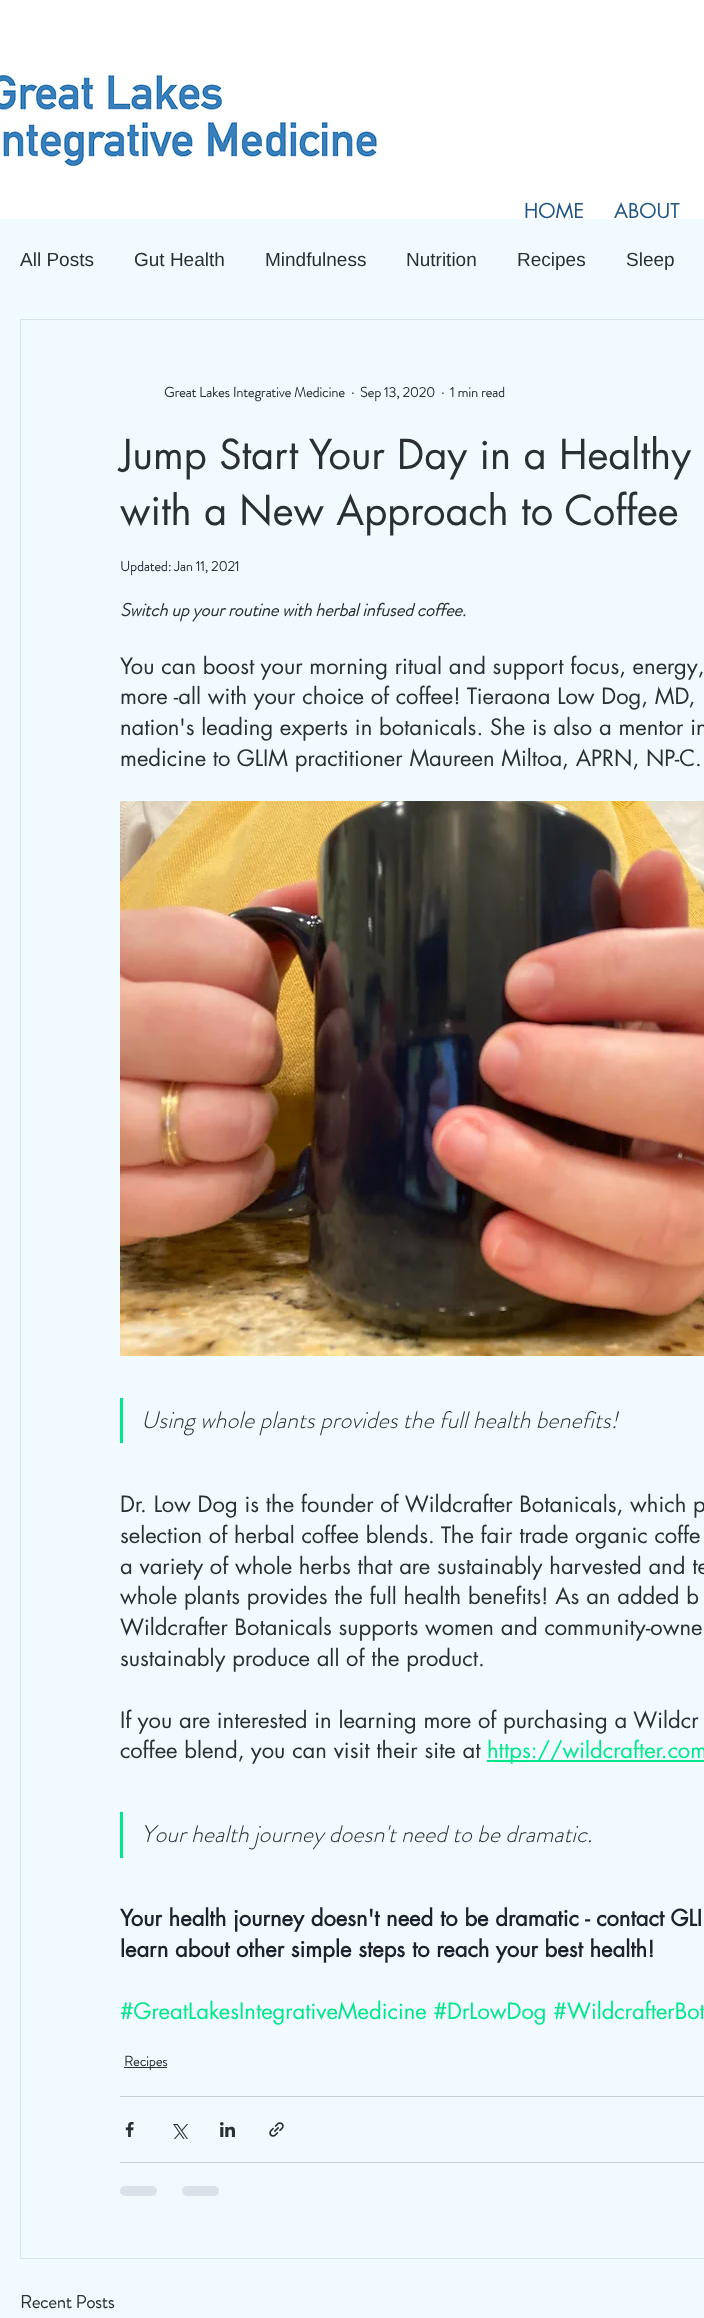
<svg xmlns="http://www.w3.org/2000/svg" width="704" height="2318">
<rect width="100%" height="100%" fill="#fff"/>
<image x="0" y="73" width="377" height="94" href="media/1.png"/>
<text x="524" y="218" style="font-family:futura;font-size:20px;fill:#205685">HOME</text>
<text x="614" y="218" style="font-family:futura;font-size:20px;fill:#205685">ABOUT</text>
<rect y="219" width="704" height="2099" fill="#f0faff"/>
<text x="20" y="266" style="font-family:Liberation Sans;font-size:19px;fill:#292f33">All Posts</text>
<text x="134" y="266" style="font-family:Liberation Sans;font-size:19px;fill:#292f33">Gut Health</text>
<text x="265" y="266" style="font-family:Liberation Sans;font-size:19px;fill:#292f33">Mindfulness</text>
<text x="406" y="266" style="font-family:Liberation Sans;font-size:19px;fill:#292f33">Nutrition</text>
<text x="517" y="266" style="font-family:Liberation Sans;font-size:19px;fill:#292f33">Recipes</text>
<text x="626" y="266" style="font-family:Liberation Sans;font-size:19px;fill:#292f33">Sleep</text>
<rect x="20.5" y="319.5" width="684" height="1939" fill="none" stroke="#d4e4ec"/>
<text x="164" y="397" style="font-family:'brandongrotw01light';font-size:14px;font-weight:bold;fill:#292f33">Great Lakes Integrative Medicine</text>
<text x="351" y="397" style="font-family:'brandongrotw01light';font-size:14px;font-weight:bold;fill:#292f33">·</text>
<text x="360" y="397" style="font-family:'brandongrotw01light';font-size:14px;font-weight:bold;fill:#292f33">Sep 13, 2020</text>
<text x="441" y="397" style="font-family:'brandongrotw01light';font-size:14px;font-weight:bold;fill:#292f33">·</text>
<text x="450" y="397" style="font-family:'brandongrotw01light';font-size:14px;font-weight:bold;fill:#292f33">1 min read</text>
<text x="120" y="469" style="font-family:futura;font-size:40px;fill:#292f33">Jump Start Your Day in a Healthy</text>
<text x="120" y="525" style="font-family:futura;font-size:40px;fill:#292f33">with a New Approach to Coffee</text>
<text x="120" y="571" style="font-family:'brandongrotw01light';font-size:14px;font-weight:bold;fill:#292f33">Updated: Jan 11, 2021</text>
<text x="120" y="616" style="font-family:'brandongrotw01light';font-size:18px;font-weight:bold;font-style:italic;fill:#292f33">Switch up your routine with herbal infused coffee.</text>
<text x="120" y="674" style="font-family:futura;font-size:22px;fill:#292f33">You can boost your morning ritual and support focus, energy,</text>
<text x="120" y="704" style="font-family:futura;font-size:22px;fill:#292f33">more -all with your choice of coffee! Tieraona Low Dog, MD,</text>
<text x="120" y="735" style="font-family:futura;font-size:22px;fill:#292f33">nation's leading experts in botanicals. She is also a mentor in</text>
<text x="120" y="766" style="font-family:futura;font-size:22px;fill:#292f33">medicine to GLIM practitioner Maureen Miltoa, APRN, NP-C.</text>
<image x="120" y="801" width="584" height="555" href="media/2.png"/>
<rect x="120" y="1398" width="3" height="45" fill="#00e689"/>
<text x="141" y="1428" style="font-family:'brandongrotw01light';font-size:24px;font-weight:300;font-style:italic;fill:#292f33">Using whole plants provides the full health benefits!</text>
<text x="120" y="1512" style="font-family:futura;font-size:22px;fill:#292f33">Dr. Low Dog is the founder of Wildcrafter Botanicals, which p</text>
<text x="120" y="1543" style="font-family:futura;font-size:22px;fill:#292f33">selection of herbal coffee blends. The fair trade organic coffe</text>
<text x="120" y="1574" style="font-family:futura;font-size:22px;fill:#292f33">a variety of whole herbs that are sustainably harvested and te</text>
<text x="120" y="1604" style="font-family:futura;font-size:22px;fill:#292f33">whole plants provides the full health benefits! As an added b</text>
<text x="120" y="1635" style="font-family:futura;font-size:22px;fill:#292f33">Wildcrafter Botanicals supports women and community-owne</text>
<text x="120" y="1666" style="font-family:futura;font-size:22px;fill:#292f33">sustainably produce all of the product.</text>
<text x="120" y="1728" style="font-family:futura;font-size:22px;fill:#292f33">If you are interested in learning more of purchasing a Wildcr</text>
<text x="120" y="1758" style="font-family:futura;font-size:22px;fill:#292f33">coffee blend, you can visit their site at</text>
<rect x="487" y="1760" width="217" height="2" fill="#00e689"/>
<text x="487" y="1758" style="font-family:futura;font-size:22px;fill:#00e689">https://wildcrafter.com</text>
<rect x="120" y="1812" width="3" height="46" fill="#00e689"/>
<text x="141" y="1842" style="font-family:'brandongrotw01light';font-size:24px;font-weight:300;font-style:italic;fill:#292f33">Your health journey doesn't need to be dramatic.</text>
<text x="120" y="1926" style="font-family:futura;font-size:22px;font-weight:bold;fill:#1d2129">Your health journey doesn't need to be dramatic - contact GLI</text>
<text x="120" y="1957" style="font-family:futura;font-size:22px;font-weight:bold;fill:#1d2129">learn about other simple steps to reach your best health!</text>
<text x="120" y="2019" style="font-family:futura;font-size:22px;fill:#00e689">#GreatLakesIntegrativeMedicine #DrLowDog #WildcrafterBot</text>
<rect x="124" y="2067" width="43" height="1" fill="#292f33"/>
<text x="124" y="2066" style="font-family:'brandongrotw01light';font-size:14px;font-weight:bold;fill:#292f33">Recipes</text>
<rect x="120" y="2096" width="584" height="1" fill="#c8d1d6"/>
<image x="125" y="2122" width="9" height="15" href="media/3.png"/>
<image x="173" y="2124" width="15" height="15" href="media/4.png"/>
<image x="220" y="2122" width="15" height="15" href="media/5.png"/>
<image x="269" y="2122" width="15" height="15" href="media/6.png"/>
<rect x="120" y="2162" width="584" height="1" fill="#c8d1d6"/>
<rect x="120" y="2186" width="37" height="10" rx="5" fill="#d8e2e7"/>
<rect x="182" y="2186" width="37" height="10" rx="5" fill="#d8e2e7"/>
<text x="20" y="2308" style="font-family:'brandongrotw01light';font-size:18px;font-weight:bold;fill:#292f33">Recent Posts</text>
</svg>
